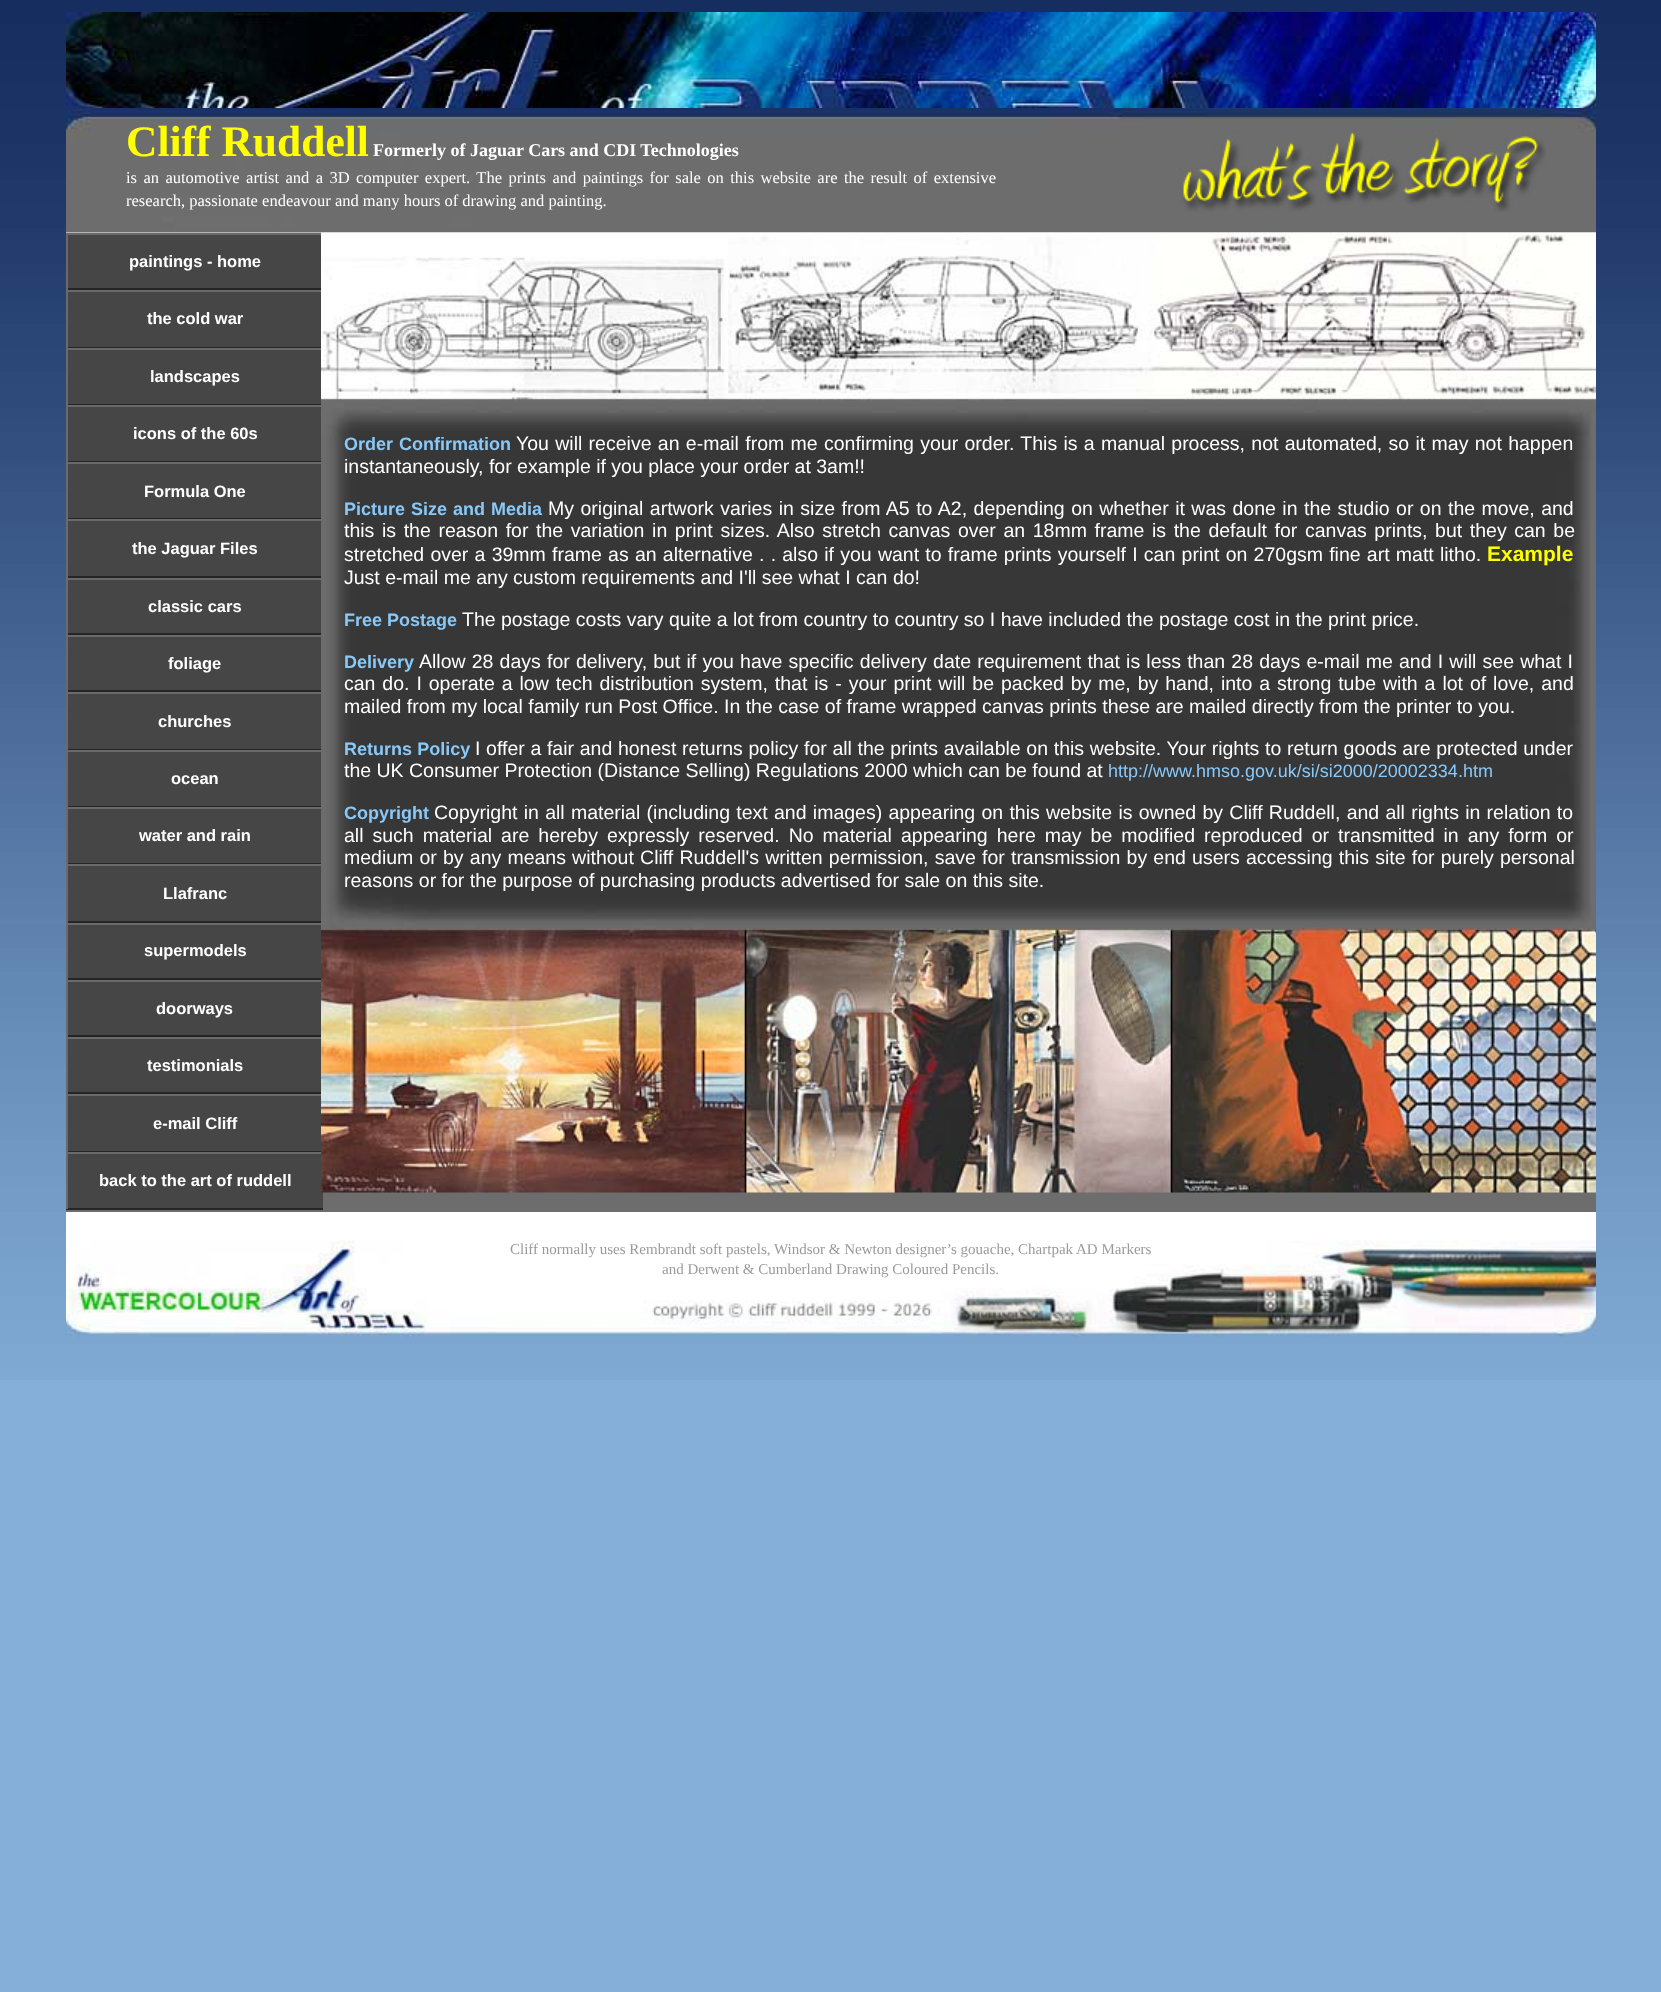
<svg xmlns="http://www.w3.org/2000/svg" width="1661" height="1992">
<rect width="100%" height="100%" fill="#85afd9"/>
<image x="0" y="0" width="1661" height="1380" href="media/1.png"/>
<rect x="66" y="232" width="1530" height="1009" fill="#fff"/>
<image x="66" y="12" width="1530" height="96" href="media/2.png"/>
<image x="66" y="108" width="1530" height="125" href="media/3.png"/>
<text x="126" y="156" style="font-family:Liberation Serif;font-size:43.5px;font-weight:bold;fill:#ff0">Cliff Ruddell</text>
<text x="373" y="156" style="font-family:Liberation Serif;font-size:18px;font-weight:bold;fill:#fff">Formerly of Jaguar Cars and CDI Technologies</text>
<text x="126" y="183" word-spacing="2.3" style="font-family:Liberation Serif;font-size:16.5px;fill:#fff">is an automotive artist and a 3D computer expert. The prints and paintings for sale on this website are the result of extensive</text>
<text x="126" y="206" style="font-family:Liberation Serif;font-size:16.5px;fill:#fff">research, passionate endeavour and many hours of drawing and painting.</text>
<image x="1179" y="130" width="367" height="82" href="media/4.png"/>
<rect x="68" y="235" width="253" height="53" fill="#474646"/>
<rect x="66" y="233" width="257" height="2" fill="#6a6a6a"/>
<rect x="66" y="288" width="257" height="2" fill="#252525"/>
<rect x="66" y="233" width="2" height="57" fill="#6a6a6a"/>
<text x="129" y="267" style="font-family:Liberation Sans;font-size:16.5px;font-weight:bold;fill:#fff">paintings - home</text>
<rect x="68" y="292" width="253" height="55" fill="#474646"/>
<rect x="66" y="290" width="257" height="2" fill="#6a6a6a"/>
<rect x="66" y="347" width="257" height="1" fill="#252525"/>
<rect x="66" y="290" width="2" height="58" fill="#6a6a6a"/>
<text x="147" y="324" style="font-family:Liberation Sans;font-size:16.5px;font-weight:bold;fill:#fff">the cold war</text>
<rect x="68" y="350" width="253" height="54" fill="#474646"/>
<rect x="66" y="348" width="257" height="2" fill="#6a6a6a"/>
<rect x="66" y="404" width="257" height="1" fill="#252525"/>
<rect x="66" y="348" width="2" height="57" fill="#6a6a6a"/>
<text x="150" y="382" style="font-family:Liberation Sans;font-size:16.5px;font-weight:bold;fill:#fff">landscapes</text>
<rect x="68" y="407" width="253" height="54" fill="#474646"/>
<rect x="66" y="405" width="257" height="2" fill="#6a6a6a"/>
<rect x="66" y="461" width="257" height="1" fill="#252525"/>
<rect x="66" y="405" width="2" height="57" fill="#6a6a6a"/>
<text x="133" y="439" style="font-family:Liberation Sans;font-size:16.5px;font-weight:bold;fill:#fff">icons of the 60s</text>
<rect x="68" y="464" width="253" height="54" fill="#474646"/>
<rect x="66" y="462" width="257" height="2" fill="#6a6a6a"/>
<rect x="66" y="518" width="257" height="1" fill="#252525"/>
<rect x="66" y="462" width="2" height="57" fill="#6a6a6a"/>
<text x="144" y="497" style="font-family:Liberation Sans;font-size:16.5px;font-weight:bold;fill:#fff">Formula One</text>
<rect x="68" y="521" width="253" height="55" fill="#474646"/>
<rect x="66" y="519" width="257" height="2" fill="#6a6a6a"/>
<rect x="66" y="576" width="257" height="2" fill="#252525"/>
<rect x="66" y="519" width="2" height="59" fill="#6a6a6a"/>
<text x="132" y="554" style="font-family:Liberation Sans;font-size:16.5px;font-weight:bold;fill:#fff">the Jaguar Files</text>
<rect x="68" y="580" width="253" height="53" fill="#474646"/>
<rect x="66" y="578" width="257" height="2" fill="#6a6a6a"/>
<rect x="66" y="633" width="257" height="2" fill="#252525"/>
<rect x="66" y="578" width="2" height="57" fill="#6a6a6a"/>
<text x="148" y="612" style="font-family:Liberation Sans;font-size:16.5px;font-weight:bold;fill:#fff">classic cars</text>
<rect x="68" y="637" width="253" height="53" fill="#474646"/>
<rect x="66" y="635" width="257" height="2" fill="#6a6a6a"/>
<rect x="66" y="690" width="257" height="2" fill="#252525"/>
<rect x="66" y="635" width="2" height="57" fill="#6a6a6a"/>
<text x="168" y="669" style="font-family:Liberation Sans;font-size:16.5px;font-weight:bold;fill:#fff">foliage</text>
<rect x="68" y="694" width="253" height="55" fill="#474646"/>
<rect x="66" y="692" width="257" height="2" fill="#6a6a6a"/>
<rect x="66" y="749" width="257" height="1" fill="#252525"/>
<rect x="66" y="692" width="2" height="58" fill="#6a6a6a"/>
<text x="158" y="727" style="font-family:Liberation Sans;font-size:16.5px;font-weight:bold;fill:#fff">churches</text>
<rect x="68" y="752" width="253" height="54" fill="#474646"/>
<rect x="66" y="750" width="257" height="2" fill="#6a6a6a"/>
<rect x="66" y="806" width="257" height="1" fill="#252525"/>
<rect x="66" y="750" width="2" height="57" fill="#6a6a6a"/>
<text x="171" y="784" style="font-family:Liberation Sans;font-size:16.5px;font-weight:bold;fill:#fff">ocean</text>
<rect x="68" y="809" width="253" height="54" fill="#474646"/>
<rect x="66" y="807" width="257" height="2" fill="#6a6a6a"/>
<rect x="66" y="863" width="257" height="1" fill="#252525"/>
<rect x="66" y="807" width="2" height="57" fill="#6a6a6a"/>
<text x="139" y="841" style="font-family:Liberation Sans;font-size:16.5px;font-weight:bold;fill:#fff">water and rain</text>
<rect x="68" y="866" width="253" height="55" fill="#474646"/>
<rect x="66" y="864" width="257" height="2" fill="#6a6a6a"/>
<rect x="66" y="921" width="257" height="2" fill="#252525"/>
<rect x="66" y="864" width="2" height="59" fill="#6a6a6a"/>
<text x="163" y="899" style="font-family:Liberation Sans;font-size:16.5px;font-weight:bold;fill:#fff">Llafranc</text>
<rect x="68" y="925" width="253" height="53" fill="#474646"/>
<rect x="66" y="923" width="257" height="2" fill="#6a6a6a"/>
<rect x="66" y="978" width="257" height="2" fill="#252525"/>
<rect x="66" y="923" width="2" height="57" fill="#6a6a6a"/>
<text x="144" y="956" style="font-family:Liberation Sans;font-size:16.5px;font-weight:bold;fill:#fff">supermodels</text>
<rect x="68" y="982" width="253" height="53" fill="#474646"/>
<rect x="66" y="980" width="257" height="2" fill="#6a6a6a"/>
<rect x="66" y="1035" width="257" height="2" fill="#252525"/>
<rect x="66" y="980" width="2" height="57" fill="#6a6a6a"/>
<text x="156" y="1014" style="font-family:Liberation Sans;font-size:16.5px;font-weight:bold;fill:#fff">doorways</text>
<rect x="68" y="1039" width="253" height="53" fill="#474646"/>
<rect x="66" y="1037" width="257" height="2" fill="#6a6a6a"/>
<rect x="66" y="1092" width="257" height="2" fill="#252525"/>
<rect x="66" y="1037" width="2" height="57" fill="#6a6a6a"/>
<text x="147" y="1071" style="font-family:Liberation Sans;font-size:16.5px;font-weight:bold;fill:#fff">testimonials</text>
<rect x="68" y="1096" width="253" height="55" fill="#474646"/>
<rect x="66" y="1094" width="257" height="2" fill="#6a6a6a"/>
<rect x="66" y="1151" width="257" height="1" fill="#252525"/>
<rect x="66" y="1094" width="2" height="58" fill="#6a6a6a"/>
<text x="153" y="1129" style="font-family:Liberation Sans;font-size:16.5px;font-weight:bold;fill:#fff">e-mail Cliff</text>
<rect x="66" y="1192" width="1530" height="20" fill="#6e6d6d"/>
<rect x="68" y="1154" width="255" height="54" fill="#474646"/>
<rect x="66" y="1152" width="257" height="2" fill="#6a6a6a"/>
<rect x="66" y="1208" width="257" height="2" fill="#252525"/>
<rect x="66" y="1152" width="2" height="57" fill="#6a6a6a"/>
<text x="99" y="1186" style="font-family:Liberation Sans;font-size:16.5px;font-weight:bold;fill:#fff">back to the art of ruddell</text>
<image x="321" y="232" width="1275" height="961" href="media/5.png"/>
<text x="344" y="450" word-spacing="0.9" style="font-family:Liberation Sans;font-size:18px;font-weight:bold;fill:#89c9f9">Order Confirmation</text>
<text x="516" y="450" word-spacing="0.9" style="font-family:Liberation Sans;font-size:19.5px;fill:#fff">You will receive an e-mail from me confirming your order. This is a manual process, not automated, so it may not happen</text>
<text x="344" y="473" style="font-family:Liberation Sans;font-size:19.5px;fill:#fff">instantaneously, for example if you place your order at 3am!!</text>
<text x="344" y="515" word-spacing="1" style="font-family:Liberation Sans;font-size:18px;font-weight:bold;fill:#89c9f9">Picture Size and Media</text>
<text x="548" y="515" word-spacing="1.05" style="font-family:Liberation Sans;font-size:19.5px;fill:#fff">My original artwork varies in size from A5 to A2, depending on whether it was done in the studio or on the move, and</text>
<text x="344" y="537" word-spacing="2.2" style="font-family:Liberation Sans;font-size:19.5px;fill:#fff">this is the reason for the variation in print sizes. Also stretch canvas over an 18mm frame is the default for canvas prints, but they can be</text>
<text x="344" y="561" word-spacing="0.8" style="font-family:Liberation Sans;font-size:19.5px;fill:#fff">stretched over a 39mm frame as an alternative . . also if you want to frame prints yourself I can print on 270gsm fine art matt litho.</text>
<text x="1487" y="561" style="font-family:Liberation Sans;font-size:21px;font-weight:bold;fill:#ff0">Example</text>
<text x="344" y="584" style="font-family:Liberation Sans;font-size:19.5px;fill:#fff">Just e-mail me any custom requirements and I'll see what I can do!</text>
<text x="344" y="626" style="font-family:Liberation Sans;font-size:18px;font-weight:bold;fill:#89c9f9">Free Postage</text>
<text x="462" y="626" style="font-family:Liberation Sans;font-size:19.5px;fill:#fff">The postage costs vary quite a lot from country to country so I have included the postage cost in the print price.</text>
<text x="344" y="668" style="font-family:Liberation Sans;font-size:18px;font-weight:bold;fill:#89c9f9">Delivery</text>
<text x="419" y="668" word-spacing="0.75" style="font-family:Liberation Sans;font-size:19.5px;fill:#fff">Allow 28 days for delivery, but if you have specific delivery date requirement that is less than 28 days e-mail me and I will see what I</text>
<text x="344" y="690" word-spacing="1.5" style="font-family:Liberation Sans;font-size:19.5px;fill:#fff">can do. I operate a low tech distribution system, that is - your print will be packed by me, by hand, into a strong tube with a lot of love, and</text>
<text x="344" y="713" style="font-family:Liberation Sans;font-size:19.5px;fill:#fff">mailed from my local family run Post Office. In the case of frame wrapped canvas prints these are mailed directly from the printer to you.</text>
<text x="344" y="755" word-spacing="0.25" style="font-family:Liberation Sans;font-size:18px;font-weight:bold;fill:#89c9f9">Returns Policy</text>
<text x="475" y="755" word-spacing="0.25" style="font-family:Liberation Sans;font-size:19.5px;fill:#fff">I offer a fair and honest returns policy for all the prints available on this website. Your rights to return goods are protected under</text>
<text x="344" y="777" style="font-family:Liberation Sans;font-size:19.5px;fill:#fff">the UK Consumer Protection (Distance Selling) Regulations 2000 which can be found at</text>
<text x="1108" y="777" style="font-family:Liberation Sans;font-size:18px;fill:#89c9f9">http://www.hmso.gov.uk/si/si2000/20002334.htm</text>
<text x="344" y="819" style="font-family:Liberation Sans;font-size:18px;font-weight:bold;fill:#89c9f9">Copyright</text>
<text x="434" y="819" word-spacing="0.85" style="font-family:Liberation Sans;font-size:19.5px;fill:#fff">Copyright in all material (including text and images) appearing on this website is owned by Cliff Ruddell, and all rights in relation to</text>
<text x="344" y="842" word-spacing="3.6" style="font-family:Liberation Sans;font-size:19.5px;fill:#fff">all such material are hereby expressly reserved. No material appearing here may be modified reproduced or transmitted in any form or</text>
<text x="344" y="864" word-spacing="0.75" style="font-family:Liberation Sans;font-size:19.5px;fill:#fff">medium or by any means without Cliff Ruddell's written permission, save for transmission by end users accessing this site for purely personal</text>
<text x="344" y="887" style="font-family:Liberation Sans;font-size:19.5px;fill:#fff">reasons or for the purpose of purchasing products advertised for sale on this site.</text>
<image x="66" y="1240" width="1530" height="98" href="media/6.png"/>
<text x="510" y="1254" style="font-family:Liberation Serif;font-size:15px;fill:#9a9a9a">Cliff normally uses Rembrandt soft pastels, Windsor &amp; Newton designer’s gouache, Chartpak AD Markers</text>
<text x="662" y="1274" style="font-family:Liberation Serif;font-size:15px;fill:#9a9a9a">and Derwent &amp; Cumberland Drawing Coloured Pencils.</text>
</svg>
